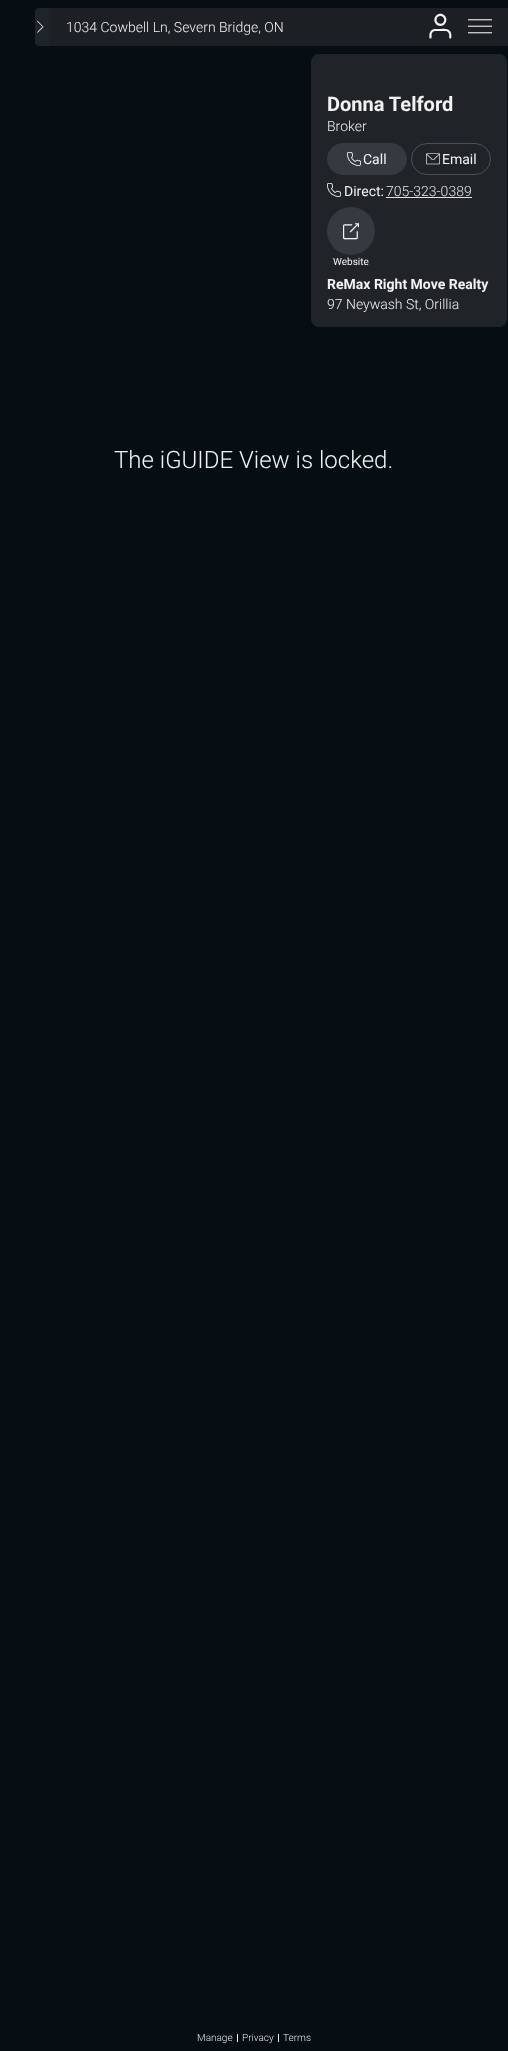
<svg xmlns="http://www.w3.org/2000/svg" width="508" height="2051">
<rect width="100%" height="100%" fill="#060d13"/>
<path d="M39 8h469v38h-469c-2 0-4-2-4-4v-30c0-2 2-4 4-4z" fill="#1c2025"/>
<path d="M39 8h11v38h-11c-2 0-4-2-4-4v-30c0-2 2-4 4-4z" fill="#212529cc"/>
<text x="37" y="32" style="font-family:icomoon;font-size:12px;fill:#f2f2f2">🕃</text>
<text x="66" y="32" style="font-family:Roboto;font-size:14px;font-weight:300;fill:#f2f2f2">1034 Cowbell Ln, Severn Bridge, ON</text>
<text x="428" y="37" style="font-family:icomoon;font-size:24px;font-weight:bold;fill:#f2f2f2">🕱</text>
<text x="468" y="37" style="font-family:icomoon;font-size:24px;fill:#f2f2f2">🕂</text>
<rect x="311" y="54" width="196" height="273" rx="8" fill="#202428"/>
<text x="327" y="111" style="font-family:Roboto;font-size:20px;font-weight:bold;fill:#f2f2f2">Donna Telford</text>
<text x="327" y="131" style="font-family:Roboto;font-size:14px;font-weight:300;fill:#f2f2f2">Broker</text>
<rect x="327.5" y="143.5" width="79" height="31" rx="15.5" fill="#343a40" stroke="#343a40"/>
<text x="347" y="165" style="font-family:icomoon;font-size:14px;fill:#f2f2f2">🖀</text>
<text x="363" y="164" style="font-family:Roboto;font-size:14px;fill:#f2f2f2">Call</text>
<rect x="411.5" y="143.5" width="79" height="31" rx="15.5" fill="none" stroke="#495057"/>
<text x="426" y="165" style="font-family:icomoon;font-size:14px;fill:#f2f2f2">🖛</text>
<text x="442" y="164" style="font-family:Roboto;font-size:14px;fill:#f2f2f2">Email</text>
<text x="327" y="196" style="font-family:icomoon;font-size:14px;fill:#f2f2f2">🖀</text>
<text x="344" y="196" style="font-family:Roboto;font-size:14px;fill:#f2f2f2">Direct:</text>
<text x="386" y="196" style="font-family:Roboto;font-size:14px;font-weight:300;fill:#e5e5e6">705-323-0389</text>
<rect x="386" y="197" width="86" height="1" fill="#e5e5e6"/>
<circle cx="351" cy="231" r="24" fill="#343a40"/>
<text x="343" y="238" style="font-family:icomoon;font-size:16px;fill:#f2f2f2">🗴</text>
<text x="333" y="265" style="font-family:Roboto;font-size:10px;fill:#f2f2f2">Website</text>
<text x="327" y="289" style="font-family:Roboto;font-size:14px;font-weight:bold;fill:#f2f2f2">ReMax Right Move Realty</text>
<text x="327" y="309" style="font-family:Roboto;font-size:14px;font-weight:300;fill:#f2f2f2">97 Neywash St, Orillia</text>
<text x="114" y="468" style="font-family:Roboto;font-size:24px;font-weight:300;fill:#f2f2f2">The iGUIDE View is locked.</text>
<text x="197" y="2041" style="font-family:Roboto;font-size:10px;font-weight:300;fill:#e5e5e6">Manage</text>
<rect x="237" y="2034" width="1" height="8" fill="#f2f2f2"/>
<text x="242" y="2041" style="font-family:Roboto;font-size:10px;font-weight:300;fill:#e5e5e6">Privacy</text>
<rect x="278" y="2034" width="1" height="8" fill="#f2f2f2"/>
<text x="283" y="2041" style="font-family:Roboto;font-size:10px;font-weight:300;fill:#e5e5e6">Terms</text>
</svg>
